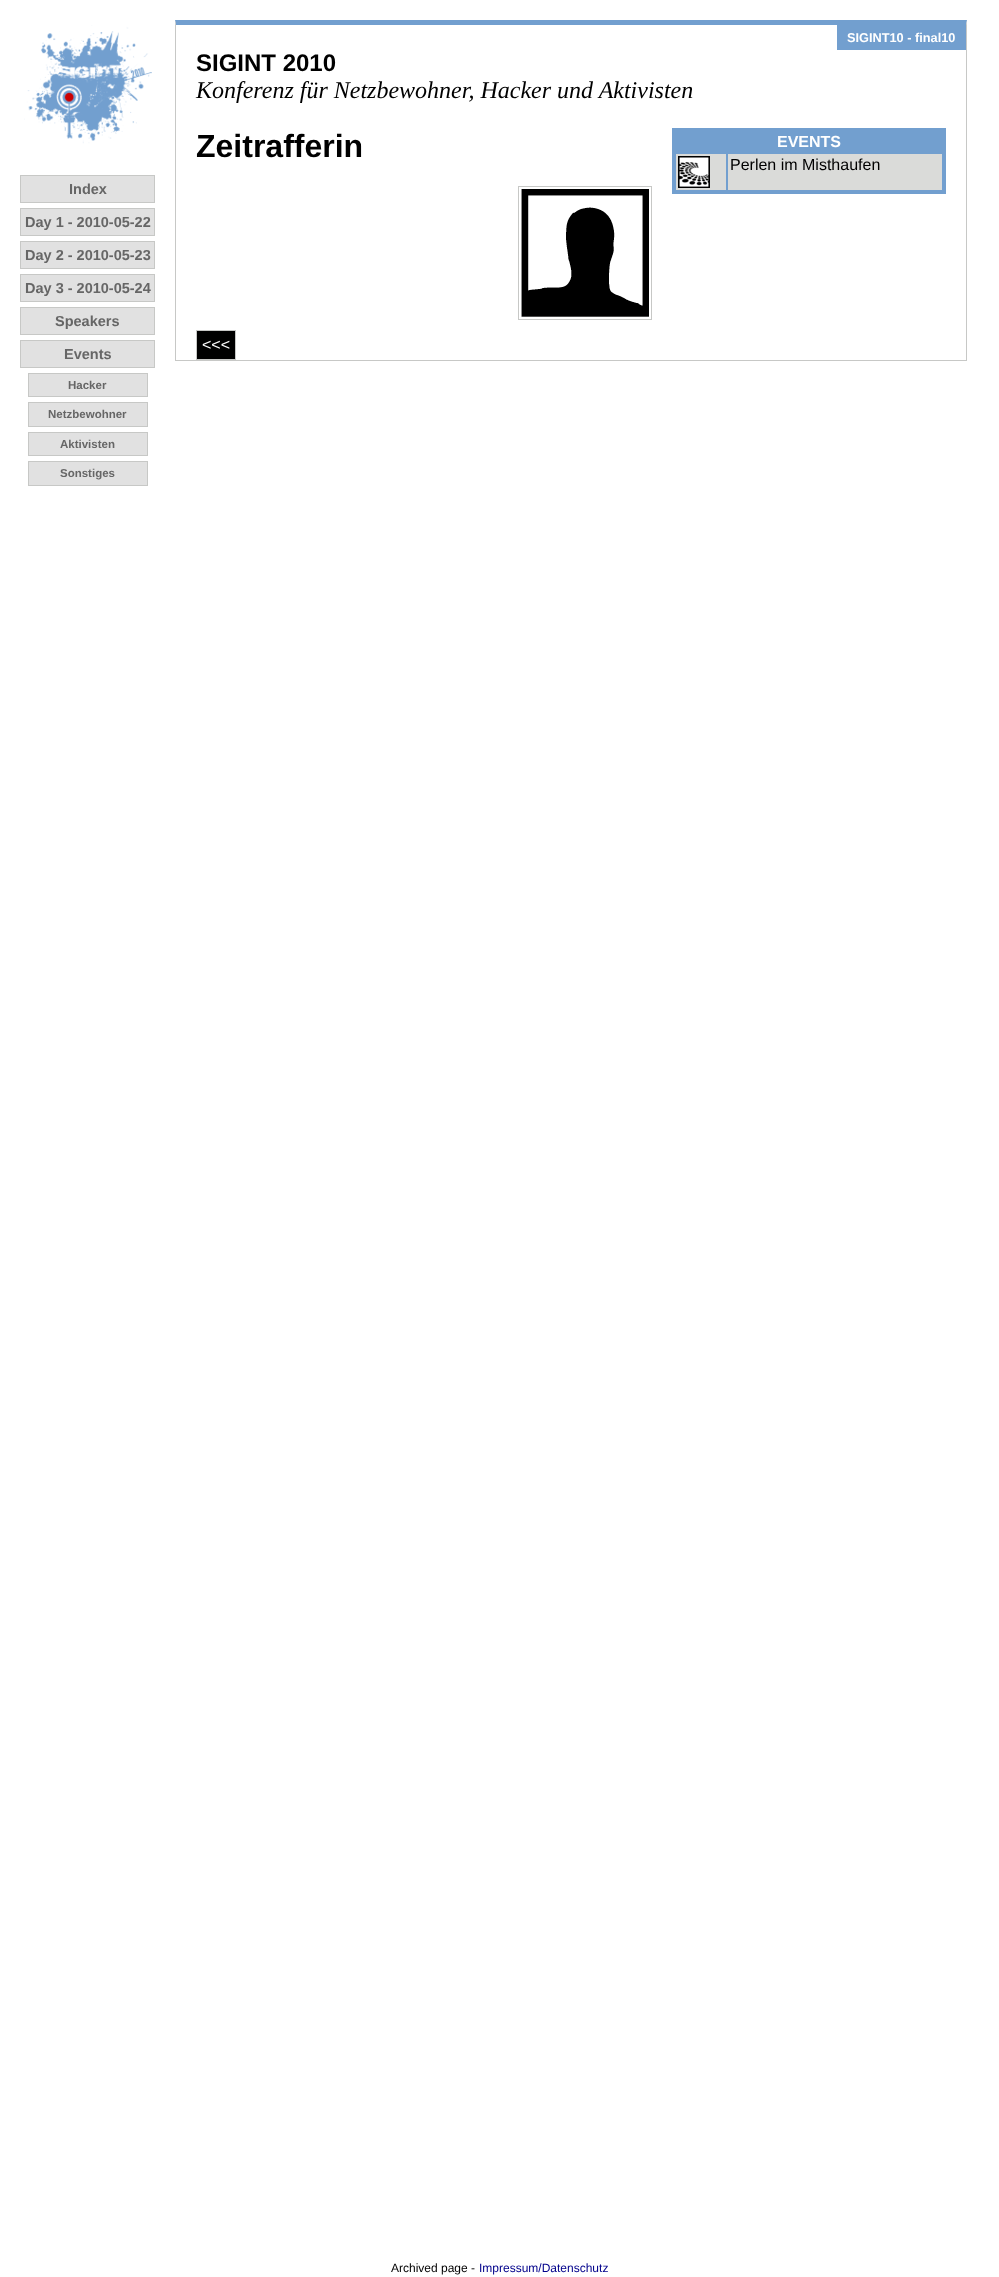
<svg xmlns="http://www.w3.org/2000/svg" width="999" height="2277">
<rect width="100%" height="100%" fill="#fff"/>
<image x="24" y="25" width="128" height="119" href="media/1.png"/>
<path d="M175 20h792l-1 5h-790z" fill="#729fcf"/>
<path d="M967 20v341l-1-1v-335z" fill="#c7c8c6"/>
<rect x="175" y="360" width="792" height="1" fill="#c7c8c6"/>
<path d="M175 361v-341l1 5v335z" fill="#c7c8c6"/>
<rect x="837" y="25" width="129" height="25" fill="#729fcf"/>
<text x="847" y="42" style="font-family:Liberation Sans;font-size:12.75px;font-weight:bold;fill:#fff">SIGINT10 - final10</text>
<text x="196" y="71" style="font-family:Liberation Sans;font-size:24px;font-weight:bold;fill:#000">SIGINT 2010</text>
<text x="196" y="98" style="font-family:Liberation Serif;font-size:24px;font-style:italic;fill:#000">Konferenz für Netzbewohner, Hacker und Aktivisten</text>
<text x="196" y="157" style="font-family:Liberation Sans;font-size:32px;font-weight:bold;fill:#000">Zeitrafferin</text>
<rect x="672" y="128" width="274" height="66" fill="#729fcf"/>
<text x="777" y="147" style="font-family:Liberation Sans;font-size:16px;font-weight:bold;fill:#fff">EVENTS</text>
<rect x="676" y="154" width="50" height="36" fill="#dadbd9"/>
<image x="678" y="156" width="32" height="32" href="media/2.png"/>
<rect x="728" y="154" width="214" height="36" fill="#dadbd9"/>
<text x="730" y="170" style="font-family:Liberation Sans;font-size:16px;fill:#000">Perlen im Misthaufen</text>
<rect x="518.5" y="186.5" width="133" height="133" fill="none" stroke="#c7c8c6"/>
<image x="521" y="189" width="128" height="128" href="media/3.png"/>
<rect x="196.5" y="330.5" width="39" height="29" fill="#000" stroke="#c7c8c6"/>
<text x="202" y="350" style="font-family:Liberation Sans;font-size:16px;fill:#fff">&lt;&lt;&lt;</text>
<rect x="20.5" y="175.5" width="134" height="27" fill="#e1e1e1" stroke="#c7c8c6"/>
<text x="69" y="194" style="font-family:Liberation Sans;font-size:14.5px;font-weight:bold;fill:#666">Index</text>
<rect x="20.5" y="208.5" width="134" height="27" fill="#e1e1e1" stroke="#c7c8c6"/>
<text x="25" y="227" style="font-family:Liberation Sans;font-size:14.5px;font-weight:bold;fill:#666">Day 1 - 2010-05-22</text>
<rect x="20.5" y="241.5" width="134" height="27" fill="#e1e1e1" stroke="#c7c8c6"/>
<text x="25" y="260" style="font-family:Liberation Sans;font-size:14.5px;font-weight:bold;fill:#666">Day 2 - 2010-05-23</text>
<rect x="20.5" y="274.5" width="134" height="27" fill="#e1e1e1" stroke="#c7c8c6"/>
<text x="25" y="293" style="font-family:Liberation Sans;font-size:14.5px;font-weight:bold;fill:#666">Day 3 - 2010-05-24</text>
<rect x="20.5" y="307.5" width="134" height="27" fill="#e1e1e1" stroke="#c7c8c6"/>
<text x="55" y="326" style="font-family:Liberation Sans;font-size:14.5px;font-weight:bold;fill:#666">Speakers</text>
<rect x="20.5" y="340.5" width="134" height="27" fill="#e1e1e1" stroke="#c7c8c6"/>
<text x="64" y="359" style="font-family:Liberation Sans;font-size:14.5px;font-weight:bold;fill:#666">Events</text>
<rect x="28.5" y="373.5" width="119" height="23" fill="#e1e1e1" stroke="#c7c8c6"/>
<text x="68" y="389" style="font-family:Liberation Sans;font-size:11.5px;font-weight:bold;fill:#666">Hacker</text>
<rect x="28.5" y="402.5" width="119" height="24" fill="#e1e1e1" stroke="#c7c8c6"/>
<text x="48" y="418" style="font-family:Liberation Sans;font-size:11.5px;font-weight:bold;fill:#666">Netzbewohner</text>
<rect x="28.5" y="432.5" width="119" height="23" fill="#e1e1e1" stroke="#c7c8c6"/>
<text x="60" y="448" style="font-family:Liberation Sans;font-size:11.5px;font-weight:bold;fill:#666">Aktivisten</text>
<rect x="28.5" y="461.5" width="119" height="24" fill="#e1e1e1" stroke="#c7c8c6"/>
<text x="60" y="477" style="font-family:Liberation Sans;font-size:11.5px;font-weight:bold;fill:#666">Sonstiges</text>
<text x="391" y="2272" style="font-family:Liberation Sans;font-size:12px;fill:#000">Archived page -</text>
<text x="479" y="2272" style="font-family:Liberation Sans;font-size:12px;fill:#00008b">Impressum/Datenschutz</text>
</svg>
